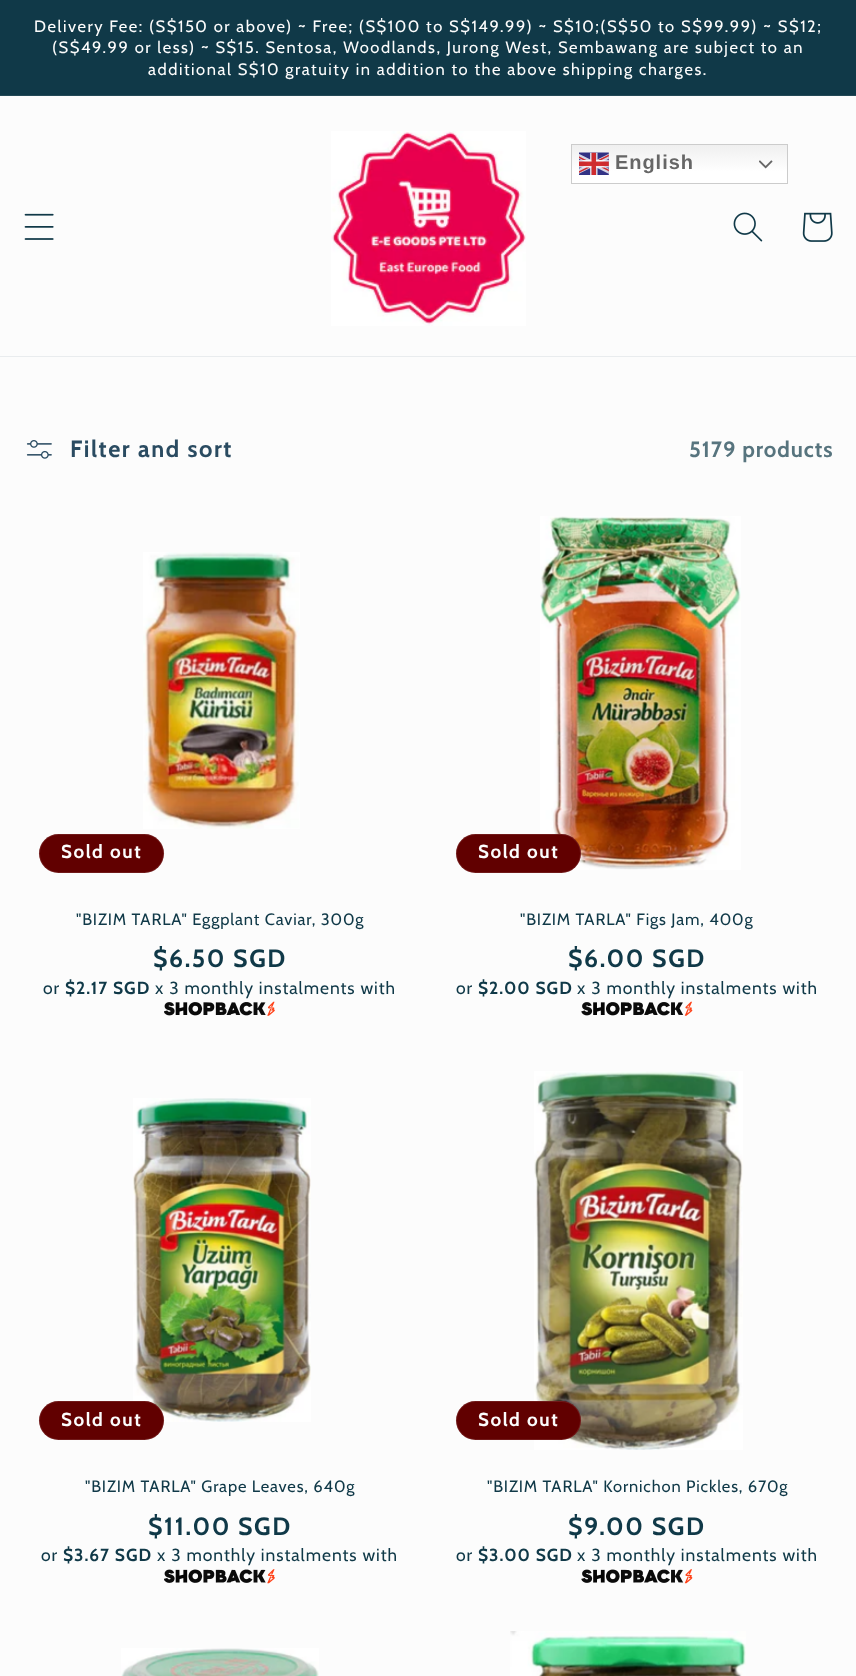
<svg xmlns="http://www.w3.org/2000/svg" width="856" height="1676">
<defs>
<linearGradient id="g1" gradientUnits="userSpaceOnUse" x1="679" y1="144" x2="679" y2="184"><stop offset="0" stop-color="#efefef"/><stop offset="0.7" stop-color="#fff"/></linearGradient>
</defs>
<rect width="100%" height="100%" fill="#fcfcfc"/>
<rect width="856" height="95" fill="#103948"/>
<rect y="95" width="856" height="1" fill="#234956"/>
<text x="34" y="32" style="font-family:Cabin;font-size:16.5px;letter-spacing:1.55px;fill:#fcfcfc">Delivery Fee: (S$150 or above) ~ Free; (S$100 to S$149.99) ~ S$10;(S$50 to S$99.99) ~ S$12;</text>
<text x="52" y="53" style="font-family:Cabin;font-size:16.5px;letter-spacing:1.55px;fill:#fcfcfc">(S$49.99 or less) ~ S$15. Sentosa, Woodlands, Jurong West, Sembawang are subject to an</text>
<text x="148" y="75" style="font-family:Cabin;font-size:16.5px;letter-spacing:1.55px;fill:#fcfcfc">additional S$10 gratuity in addition to the above shipping charges.</text>
<rect y="356" width="856" height="1" fill="#e9ecee"/>
<image x="24" y="213" width="30" height="27" href="media/1.png"/>
<image x="331" y="131" width="195" height="195" href="media/2.png"/>
<image x="733" y="212" width="30" height="30" href="media/3.png"/>
<image x="802" y="212" width="31" height="30" href="media/4.png"/>
<rect x="572" y="145" width="215" height="38" fill="url(#g1)"/>
<rect x="571.5" y="144.5" width="216" height="39" fill="none" stroke="#ccc"/>
<image x="579" y="152" width="30" height="23" href="media/5.png"/>
<text x="615" y="169" style="font-family:Liberation Sans;font-size:20px;font-weight:bold;letter-spacing:0.95px;fill:#666">English</text>
<image x="759" y="160" width="14" height="9" href="media/6.png"/>
<image x="26" y="440" width="26" height="19" href="media/7.png"/>
<text x="70" y="457" style="font-family:Cabin;font-size:23.5px;font-weight:bold;letter-spacing:1.55px;fill:#2a4b61">Filter and sort</text>
<text x="689" y="457" style="font-family:Cabin;font-size:22px;font-weight:bold;letter-spacing:0.95px;fill:#57747e">5179 products</text>
<image x="143" y="552" width="157" height="277" href="media/8.png"/>
<rect x="39" y="834" width="125" height="39" rx="19.5" fill="#610000"/>
<rect x="39.5" y="834.5" width="124" height="38" rx="19" fill="none" stroke="#fcfcfc1a"/>
<text x="61" y="858" style="font-family:Cabin;font-size:18.75px;font-weight:bold;letter-spacing:1.55px;fill:#fcfcfc">Sold out</text>
<text x="76" y="925" style="font-family:Cabin;font-size:16.5px;letter-spacing:0.85px;fill:#103948">"BIZIM TARLA" Eggplant Caviar, 300g</text>
<text x="153" y="967" style="font-family:Cabin;font-size:25px;font-weight:bold;letter-spacing:1.55px;fill:#103948">$6.50 SGD</text>
<text x="43" y="994" style="font-family:Cabin;font-size:17.5px;letter-spacing:0.95px;fill:#103948">or</text>
<text x="65" y="994" style="font-family:Cabin;font-size:17.5px;font-weight:bold;letter-spacing:0.95px;fill:#103948">$2.17 SGD</text>
<text x="155" y="994" style="font-family:Cabin;font-size:17.5px;letter-spacing:0.95px;fill:#103948">x 3 monthly instalments with</text>
<image x="164" y="1001" width="111" height="15" href="media/9.png"/>
<image x="540" y="516" width="201" height="354" href="media/10.png"/>
<rect x="456" y="834" width="125" height="39" rx="19.5" fill="#610000"/>
<rect x="456.5" y="834.5" width="124" height="38" rx="19" fill="none" stroke="#fcfcfc1a"/>
<text x="478" y="858" style="font-family:Cabin;font-size:18.75px;font-weight:bold;letter-spacing:1.55px;fill:#fcfcfc">Sold out</text>
<text x="520" y="925" style="font-family:Cabin;font-size:16.5px;letter-spacing:0.85px;fill:#103948">"BIZIM TARLA" Figs Jam, 400g</text>
<text x="568" y="967" style="font-family:Cabin;font-size:25px;font-weight:bold;letter-spacing:1.55px;fill:#103948">$6.00 SGD</text>
<text x="456" y="994" style="font-family:Cabin;font-size:17.5px;letter-spacing:0.95px;fill:#103948">or</text>
<text x="478" y="994" style="font-family:Cabin;font-size:17.5px;font-weight:bold;letter-spacing:0.95px;fill:#103948">$2.00 SGD</text>
<text x="577" y="994" style="font-family:Cabin;font-size:17.5px;letter-spacing:0.95px;fill:#103948">x 3 monthly instalments with</text>
<image x="581" y="1001" width="112" height="15" href="media/11.png"/>
<image x="133" y="1098" width="178" height="324" href="media/12.png"/>
<rect x="39" y="1401" width="125" height="39" rx="19.5" fill="#610000"/>
<rect x="39.5" y="1401.5" width="124" height="38" rx="19" fill="none" stroke="#fcfcfc1a"/>
<text x="61" y="1426" style="font-family:Cabin;font-size:18.75px;font-weight:bold;letter-spacing:1.55px;fill:#fcfcfc">Sold out</text>
<text x="85" y="1492" style="font-family:Cabin;font-size:16.5px;letter-spacing:0.85px;fill:#103948">"BIZIM TARLA" Grape Leaves, 640g</text>
<text x="148" y="1535" style="font-family:Cabin;font-size:25px;font-weight:bold;letter-spacing:1.55px;fill:#103948">$11.00 SGD</text>
<text x="41" y="1561" style="font-family:Cabin;font-size:17.5px;letter-spacing:0.95px;fill:#103948">or</text>
<text x="63" y="1561" style="font-family:Cabin;font-size:17.5px;font-weight:bold;letter-spacing:0.95px;fill:#103948">$3.67 SGD</text>
<text x="157" y="1561" style="font-family:Cabin;font-size:17.5px;letter-spacing:0.95px;fill:#103948">x 3 monthly instalments with</text>
<image x="164" y="1569" width="111" height="15" href="media/13.png"/>
<image x="534" y="1071" width="209" height="379" href="media/14.png"/>
<rect x="456" y="1401" width="125" height="39" rx="19.5" fill="#610000"/>
<rect x="456.5" y="1401.5" width="124" height="38" rx="19" fill="none" stroke="#fcfcfc1a"/>
<text x="478" y="1426" style="font-family:Cabin;font-size:18.75px;font-weight:bold;letter-spacing:1.55px;fill:#fcfcfc">Sold out</text>
<text x="487" y="1492" style="font-family:Cabin;font-size:16.5px;letter-spacing:0.85px;fill:#103948">"BIZIM TARLA" Kornichon Pickles, 670g</text>
<text x="568" y="1535" style="font-family:Cabin;font-size:25px;font-weight:bold;letter-spacing:1.55px;fill:#103948">$9.00 SGD</text>
<text x="456" y="1561" style="font-family:Cabin;font-size:17.5px;letter-spacing:0.95px;fill:#103948">or</text>
<text x="478" y="1561" style="font-family:Cabin;font-size:17.5px;font-weight:bold;letter-spacing:0.95px;fill:#103948">$3.00 SGD</text>
<text x="577" y="1561" style="font-family:Cabin;font-size:17.5px;letter-spacing:0.95px;fill:#103948">x 3 monthly instalments with</text>
<image x="581" y="1569" width="112" height="15" href="media/15.png"/>
<image x="121" y="1648" width="198" height="28" href="media/16.png"/>
<image x="510" y="1631" width="236" height="45" href="media/17.png"/>
</svg>
